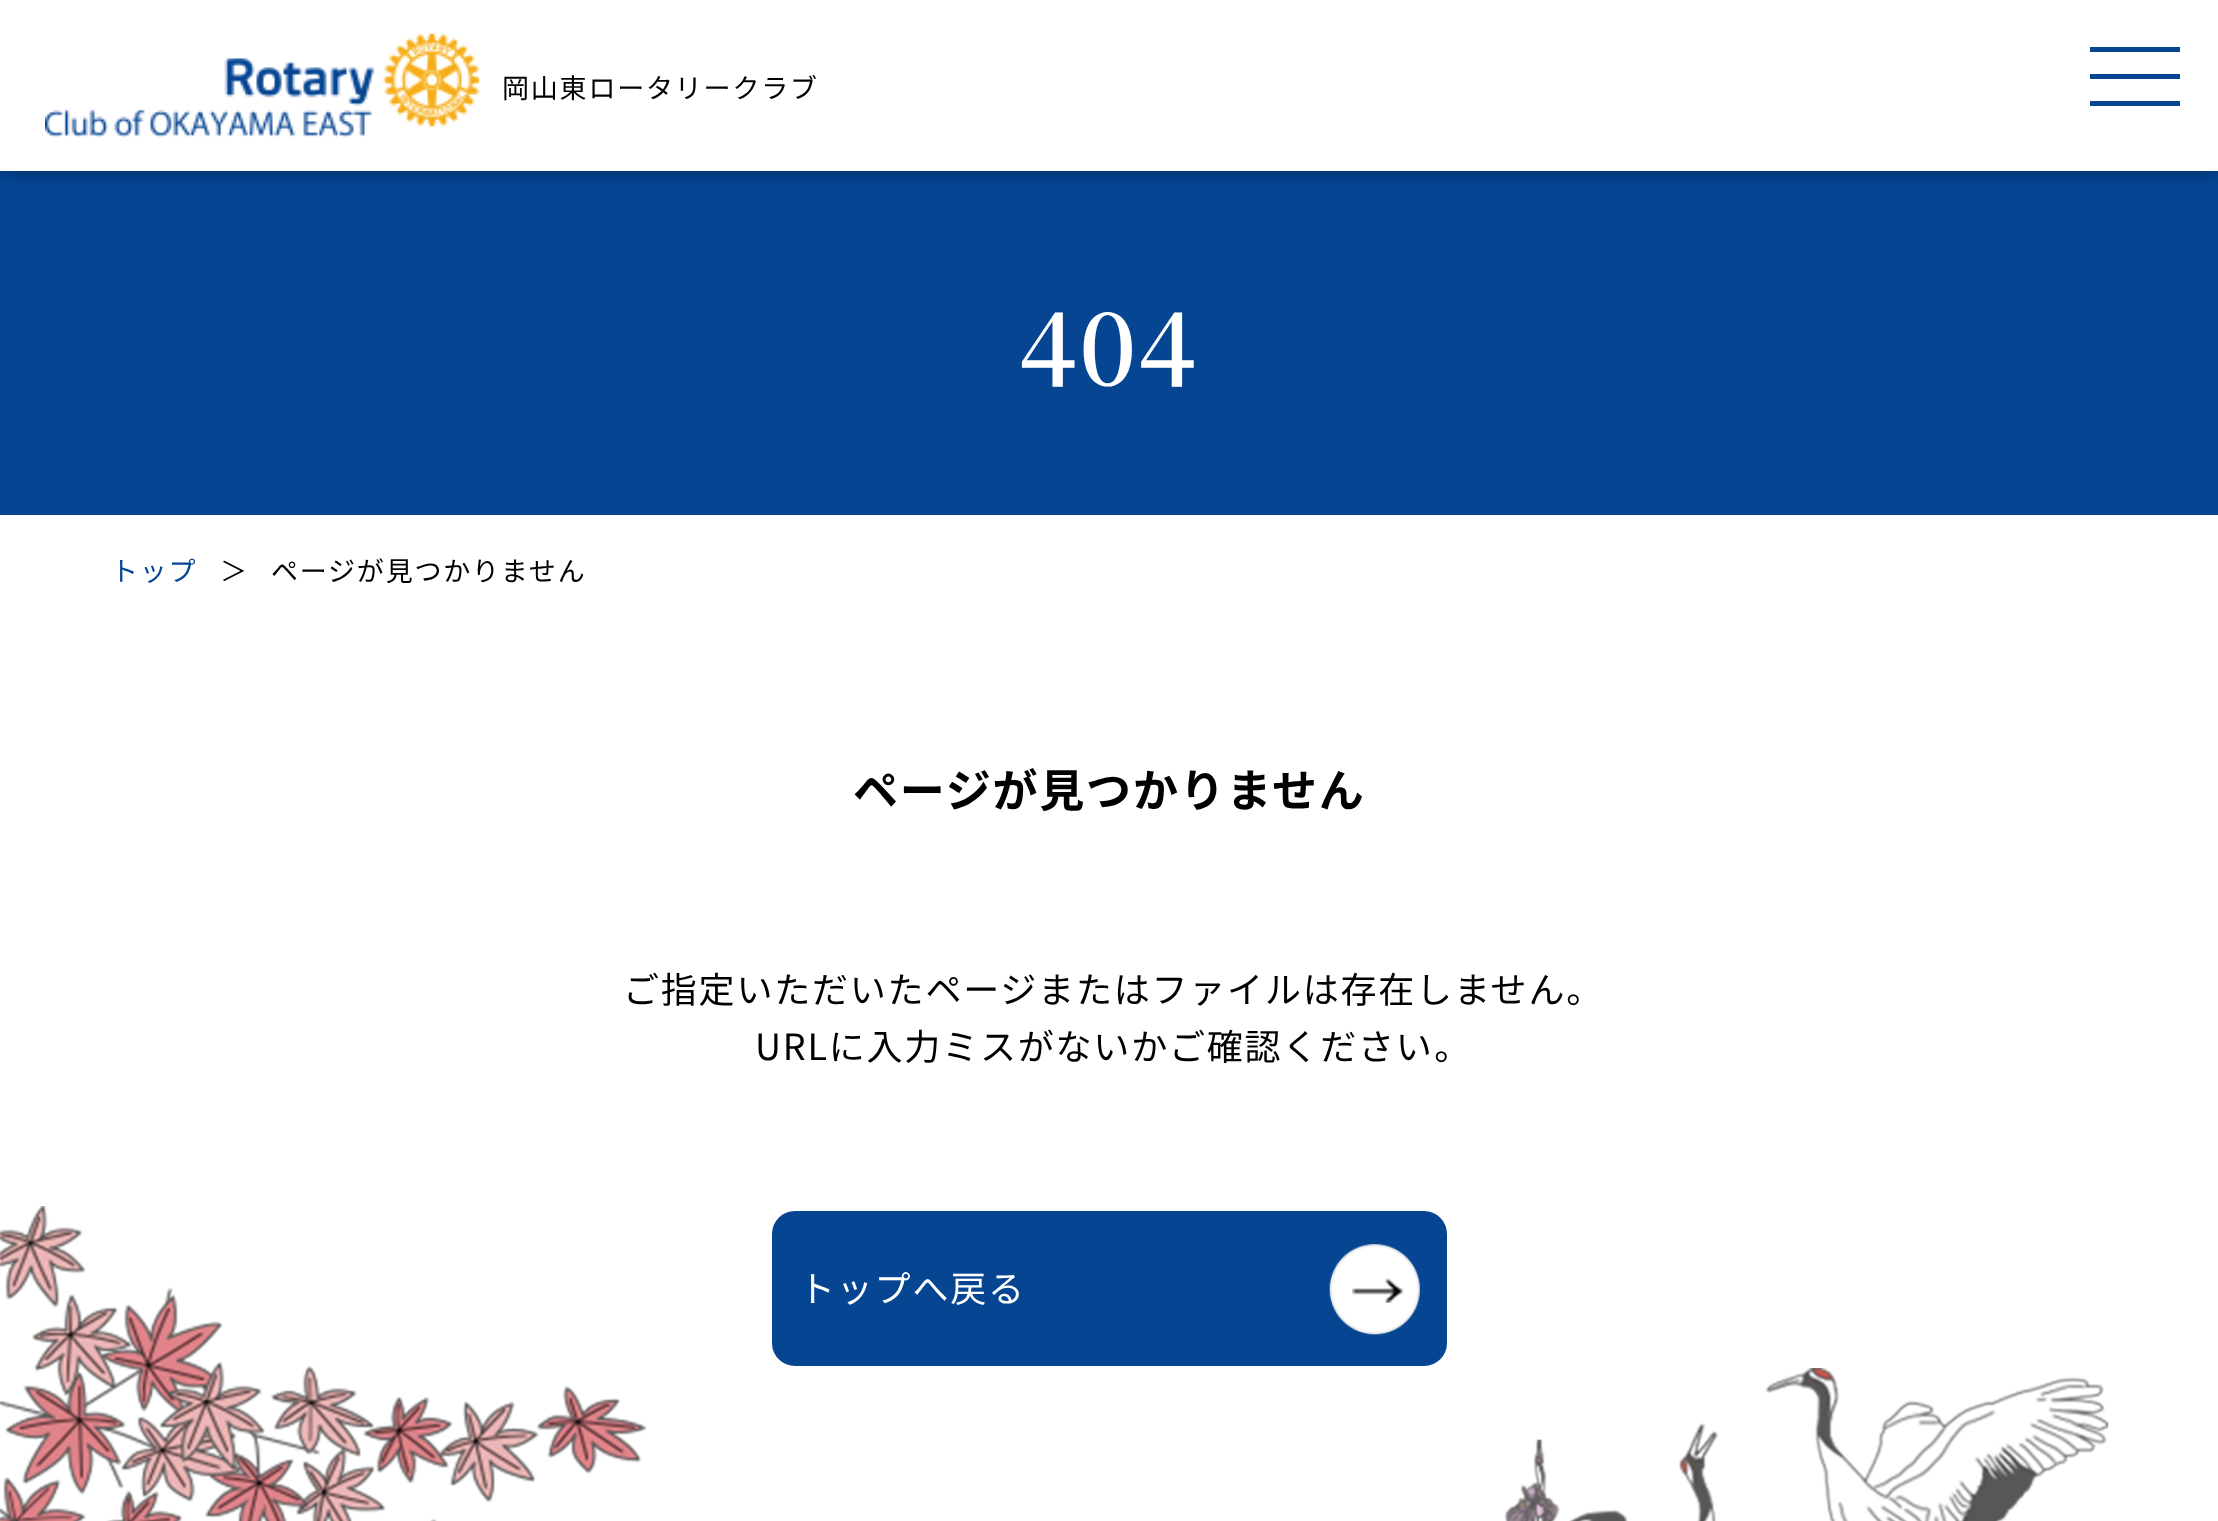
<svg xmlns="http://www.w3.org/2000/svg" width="2218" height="1521">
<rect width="100%" height="100%" fill="#fff"/>
<rect y="171" width="2218" height="344" fill="#054592"/>
<rect y="-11" width="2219" height="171" fill="#000" filter="blur(13.5px)"/>
<rect width="2218" height="171" fill="#fff"/>
<image x="45" y="33" width="435" height="105" href="media/1.png"/>
<text x="502" y="98" style="font-family:Noto Sans JP;font-size:27px;letter-spacing:1.8px;fill:#000">岡山東ロータリークラブ</text>
<rect x="2090" y="47" width="90" height="5" fill="#054592"/>
<rect x="2090" y="74" width="90" height="5" fill="#054592"/>
<rect x="2090" y="101" width="90" height="5" fill="#054592"/>
<text x="1019" y="385" style="font-family:Noto Serif JP;font-size:101px;font-weight:600;letter-spacing:1.8px;fill:#fff">404</text>
<text x="111" y="581" style="font-family:Noto Sans JP;font-size:27px;letter-spacing:1.8px;fill:#054592">トップ</text>
<text x="220" y="581" style="font-family:Noto Sans JP;font-size:27px;letter-spacing:1.8px;fill:#000">＞</text>
<text x="271" y="581" style="font-family:Noto Sans JP;font-size:27px;letter-spacing:1.8px;fill:#000">ページが見つかりません</text>
<text x="853" y="807" style="font-family:Noto Sans JP;font-size:45px;font-weight:bold;letter-spacing:1.8px;fill:#000">ページが見つかりません</text>
<text x="623" y="1003" style="font-family:Noto Sans JP;font-size:36px;letter-spacing:1.8px;fill:#000">ご指定いただいたページまたはファイルは存在しません</text>
<text x="1566" y="1003" style="font-family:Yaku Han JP;font-size:36px;letter-spacing:1.8px;fill:#000">。</text>
<text x="755" y="1060" style="font-family:Noto Sans JP;font-size:36px;letter-spacing:1.8px;fill:#000">URLに入力ミスがないかご確認ください</text>
<text x="1434" y="1060" style="font-family:Yaku Han JP;font-size:36px;letter-spacing:1.8px;fill:#000">。</text>
<rect x="774.5" y="1213.5" width="670" height="150" rx="20.5" fill="#054592" stroke="#054592" stroke-width="5"/>
<text x="799" y="1302" style="font-family:Noto Sans JP;font-size:36px;letter-spacing:1.8px;fill:#fff">トップへ戻る</text>
<image x="1329" y="1244" width="91" height="91" href="media/2.png"/>
<image x="0" y="1206" width="646" height="315" href="media/3.png"/>
<image x="1504" y="1368" width="605" height="153" href="media/4.png"/>
</svg>
